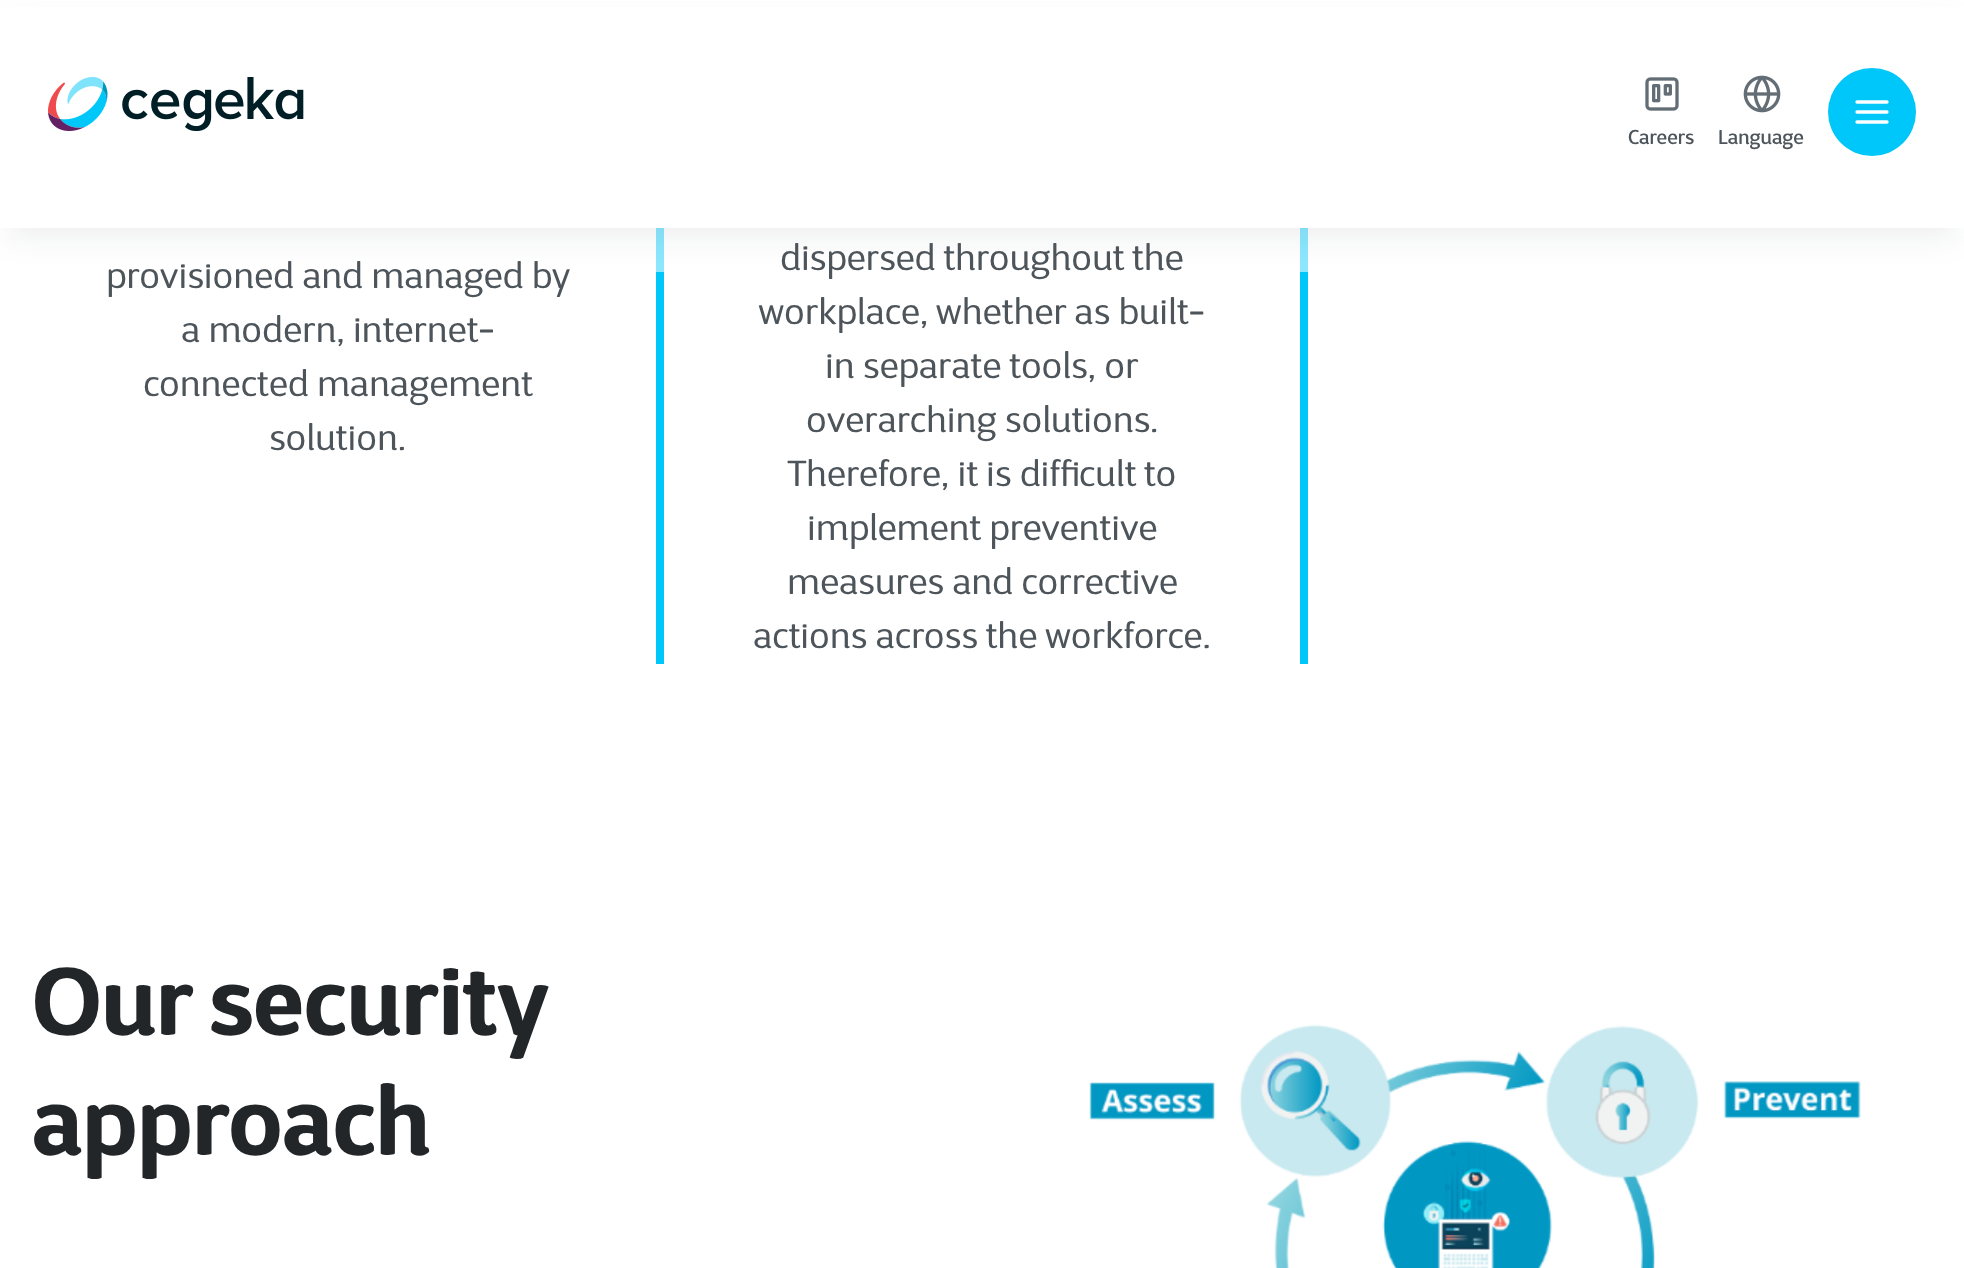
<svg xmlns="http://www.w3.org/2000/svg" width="1964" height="1268">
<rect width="100%" height="100%" fill="#fff"/>
<rect x="656" y="228" width="8" height="44" fill="#8ae7fe"/>
<rect x="656" y="272" width="8" height="392" fill="#00c7f9"/>
<rect x="1300" y="228" width="8" height="44" fill="#8ae7fe"/>
<rect x="1300" y="272" width="8" height="392" fill="#00c7f9"/>
<rect x="8" y="24" width="1948" height="212" fill="#10182814" filter="blur(16px)"/>
<rect y="7" width="1964" height="221" fill="#fff"/>
<image x="48" y="76" width="256" height="56" href="media/1.png"/>
<image x="1645" y="77" width="34" height="34" href="media/2.png"/>
<text x="1628" y="144" style="font-family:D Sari;font-size:20px;fill:#4d555b">Careers</text>
<image x="1743" y="75" width="38" height="38" href="media/3.png"/>
<text x="1718" y="144" style="font-family:D Sari;font-size:20px;fill:#4d555b">Language</text>
<circle cx="1872" cy="112" r="44" fill="#00c7f9"/>
<path d="M1857 112h30m-30-10h30m-30 20h30" fill="none" stroke="#fff" stroke-width="3.3" stroke-linecap="round" stroke-linejoin="round"/>
<text x="106" y="288" style="font-family:D Sari;font-size:36px;font-weight:300;fill:#4d555b">provisioned and managed by</text>
<text x="181" y="342" style="font-family:D Sari;font-size:36px;font-weight:300;fill:#4d555b">a modern, internet-</text>
<text x="143" y="396" style="font-family:D Sari;font-size:36px;font-weight:300;fill:#4d555b">connected management</text>
<text x="269" y="450" style="font-family:D Sari;font-size:36px;font-weight:300;fill:#4d555b">solution.</text>
<text x="780" y="270" style="font-family:D Sari;font-size:36px;font-weight:300;fill:#4d555b">dispersed throughout the</text>
<text x="758" y="324" style="font-family:D Sari;font-size:36px;font-weight:300;fill:#4d555b">workplace, whether as built-</text>
<text x="825" y="378" style="font-family:D Sari;font-size:36px;font-weight:300;fill:#4d555b">in separate tools, or</text>
<text x="806" y="432" style="font-family:D Sari;font-size:36px;font-weight:300;fill:#4d555b">overarching solutions.</text>
<text x="787" y="486" style="font-family:D Sari;font-size:36px;font-weight:300;fill:#4d555b">Therefore, it is difficult to</text>
<text x="807" y="540" style="font-family:D Sari;font-size:36px;font-weight:300;fill:#4d555b">implement preventive</text>
<text x="787" y="594" style="font-family:D Sari;font-size:36px;font-weight:300;fill:#4d555b">measures and corrective</text>
<text x="753" y="648" style="font-family:D Sari;font-size:36px;font-weight:300;fill:#4d555b">actions across the workforce.</text>
<text x="32" y="1035" word-spacing="-2" style="font-family:D Sari;font-size:96px;font-weight:600;fill:#232628">Our security</text>
<text x="32" y="1155" style="font-family:D Sari;font-size:96px;font-weight:600;fill:#232628">approach</text>
<image x="1089" y="1024" width="772" height="244" href="media/4.png"/>
</svg>
